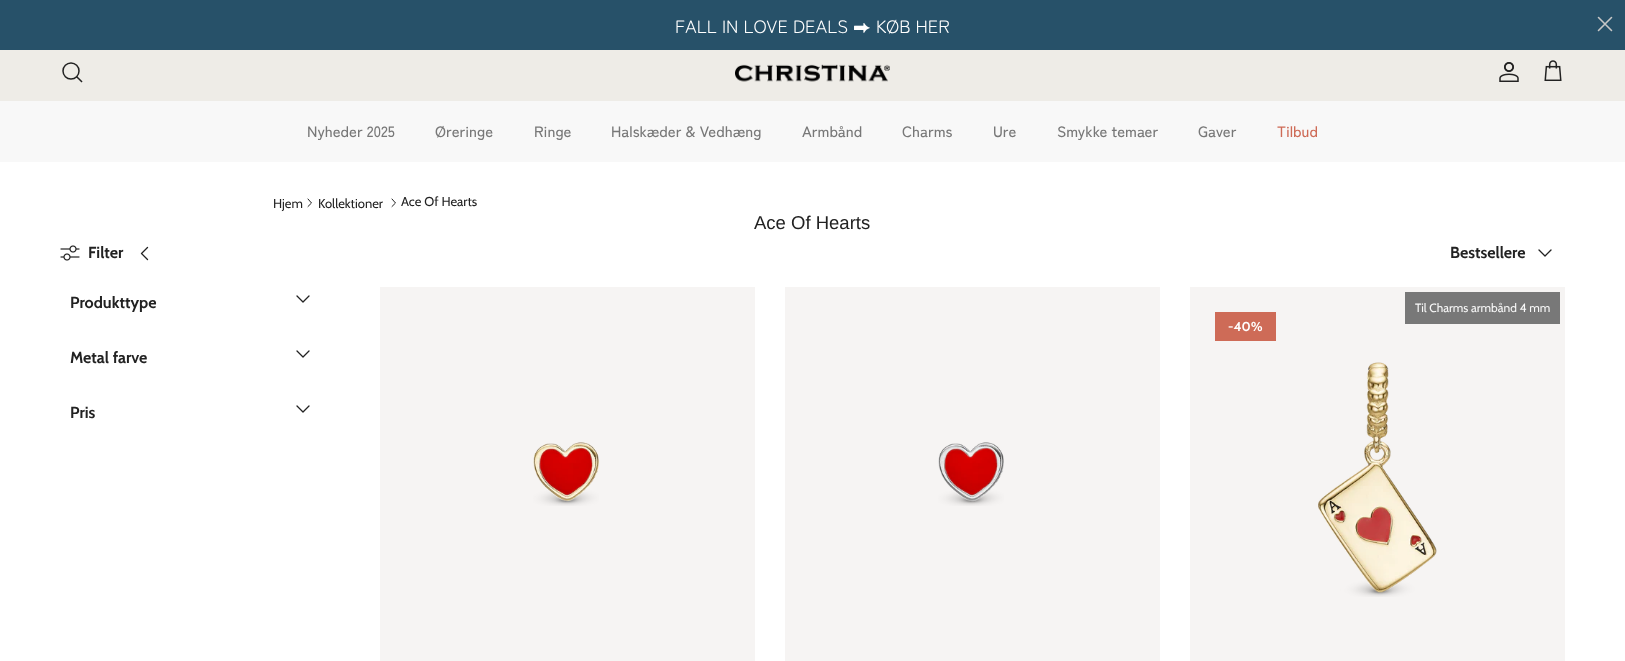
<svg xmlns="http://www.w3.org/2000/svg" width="1625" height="661">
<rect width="100%" height="100%" fill="#fff"/>
<rect width="1625" height="50" fill="#275169"/>
<text x="675" y="33" style="font-family:Zen Maru Gothic;font-size:18px;fill:#fff">FALL IN LOVE DEALS</text>
<text x="853" y="33" style="font-family:FreeSans;font-size:18px;fill:#fff">⮕</text>
<text x="876" y="33" style="font-family:Zen Maru Gothic;font-size:18px;fill:#fff">KØB HER</text>
<path d="M1598.5 17.5l13 13m-13 0l13-13z" fill="none" stroke="#c7c7c7" stroke-width="1.6" stroke-linecap="round" stroke-linejoin="round"/>
<rect y="50" width="1625" height="51" fill="#eeece7"/>
<circle cx="71" cy="71" r="8" fill="none" stroke="#222" stroke-width="1.5"/>
<path d="M77 77l4.5 4.5" fill="none" stroke="#222" stroke-width="1.5" stroke-linecap="square"/>
<image x="735" y="64" width="155" height="18" href="media/1.png"/>
<image x="1499" y="62" width="20" height="20" href="media/2.png"/>
<image x="1544" y="60" width="18" height="21" href="media/3.png"/>
<rect y="101" width="1625" height="61" fill="#f8f8f8"/>
<text x="307" y="137" style="font-family:Zen Kaku Gothic New;font-size:15px;font-weight:500;fill:#787878">Nyheder 2025</text>
<text x="435" y="137" style="font-family:Zen Kaku Gothic New;font-size:15px;font-weight:500;fill:#787878">Øreringe</text>
<text x="534" y="137" style="font-family:Zen Kaku Gothic New;font-size:15px;font-weight:500;fill:#787878">Ringe</text>
<text x="611" y="137" style="font-family:Zen Kaku Gothic New;font-size:15px;font-weight:500;fill:#787878">Halskæder &amp; Vedhæng</text>
<text x="802" y="137" style="font-family:Zen Kaku Gothic New;font-size:15px;font-weight:500;fill:#787878">Armbånd</text>
<text x="902" y="137" style="font-family:Zen Kaku Gothic New;font-size:15px;font-weight:500;fill:#787878">Charms</text>
<text x="993" y="137" style="font-family:Zen Kaku Gothic New;font-size:15px;font-weight:500;fill:#787878">Ure</text>
<text x="1057" y="137" style="font-family:Zen Kaku Gothic New;font-size:15px;font-weight:500;fill:#787878">Smykke temaer</text>
<text x="1198" y="137" style="font-family:Zen Kaku Gothic New;font-size:15px;font-weight:500;fill:#787878">Gaver</text>
<text x="1277" y="137" style="font-family:Zen Kaku Gothic New;font-size:15px;font-weight:500;fill:#ce6b57">Tilbud</text>
<text x="273" y="208" style="font-family:Cabin;font-size:13px;fill:#222">Hjem</text>
<path d="M308 206.5l3.5-3.5l-3.5-4" fill="none" stroke="#222" stroke-linecap="round" stroke-linejoin="round"/>
<text x="318" y="208" style="font-family:Cabin;font-size:13px;fill:#222">Kollektioner</text>
<path d="M392 206.5l3.5-3.5l-3.5-4" fill="none" stroke="#222" stroke-linecap="round" stroke-linejoin="round"/>
<text x="401" y="206" style="font-family:Cabin;font-size:13px;fill:#222">Ace Of Hearts</text>
<text x="754" y="229" style="font-family:Liberation Sans;font-size:18.5px;fill:#222">Ace Of Hearts</text>
<image x="60" y="245" width="20" height="16" href="media/4.png"/>
<text x="88" y="258" style="font-family:Cabin;font-size:16px;font-weight:bold;fill:#222">Filter</text>
<path d="M147.5 247.5l-6 6l6 6" fill="none" stroke="#222" stroke-width="1.3" stroke-linecap="round" stroke-linejoin="round"/>
<text x="1450" y="258" style="font-family:Cabin;font-size:16px;font-weight:bold;fill:#222">Bestsellere</text>
<path d="M1539 250l6 6l6-6" fill="none" stroke="#222" stroke-width="1.3" stroke-linecap="round" stroke-linejoin="round"/>
<text x="70" y="308" style="font-family:Cabin;font-size:16px;font-weight:bold;fill:#222">Produkttype</text>
<path d="M297 296l6 6l6-6m-12 55l6 6l6-6" fill="none" stroke="#222" stroke-width="1.3" stroke-linecap="round" stroke-linejoin="round"/>
<text x="70" y="363" style="font-family:Cabin;font-size:16px;font-weight:bold;fill:#222">Metal farve</text>
<text x="70" y="418" style="font-family:Cabin;font-size:16px;font-weight:bold;fill:#222">Pris</text>
<path d="M297 406l6 6l6-6" fill="none" stroke="#222" stroke-width="1.3" stroke-linecap="round" stroke-linejoin="round"/>
<rect x="380" y="287" width="375" height="374" fill="#f6f4f3"/>
<image x="533" y="442" width="66" height="64" href="media/5.png"/>
<rect x="785" y="287" width="375" height="374" fill="#f6f4f3"/>
<image x="938" y="442" width="66" height="64" href="media/6.png"/>
<rect x="1190" y="287" width="375" height="374" fill="#f6f4f3"/>
<rect x="1405" y="292" width="155" height="32" fill="#787878"/>
<text x="1415" y="312" style="font-family:Cabin;font-size:12px;fill:#f8f8f8">Til Charms armbånd 4 mm</text>
<rect x="1215" y="312" width="61" height="29" fill="#ce6b57"/>
<text x="1228" y="331" style="font-family:Cabin;font-size:13px;font-weight:bold;fill:#fff">-40%</text>
<image x="1318" y="362" width="119" height="235" href="media/7.png"/>
</svg>
